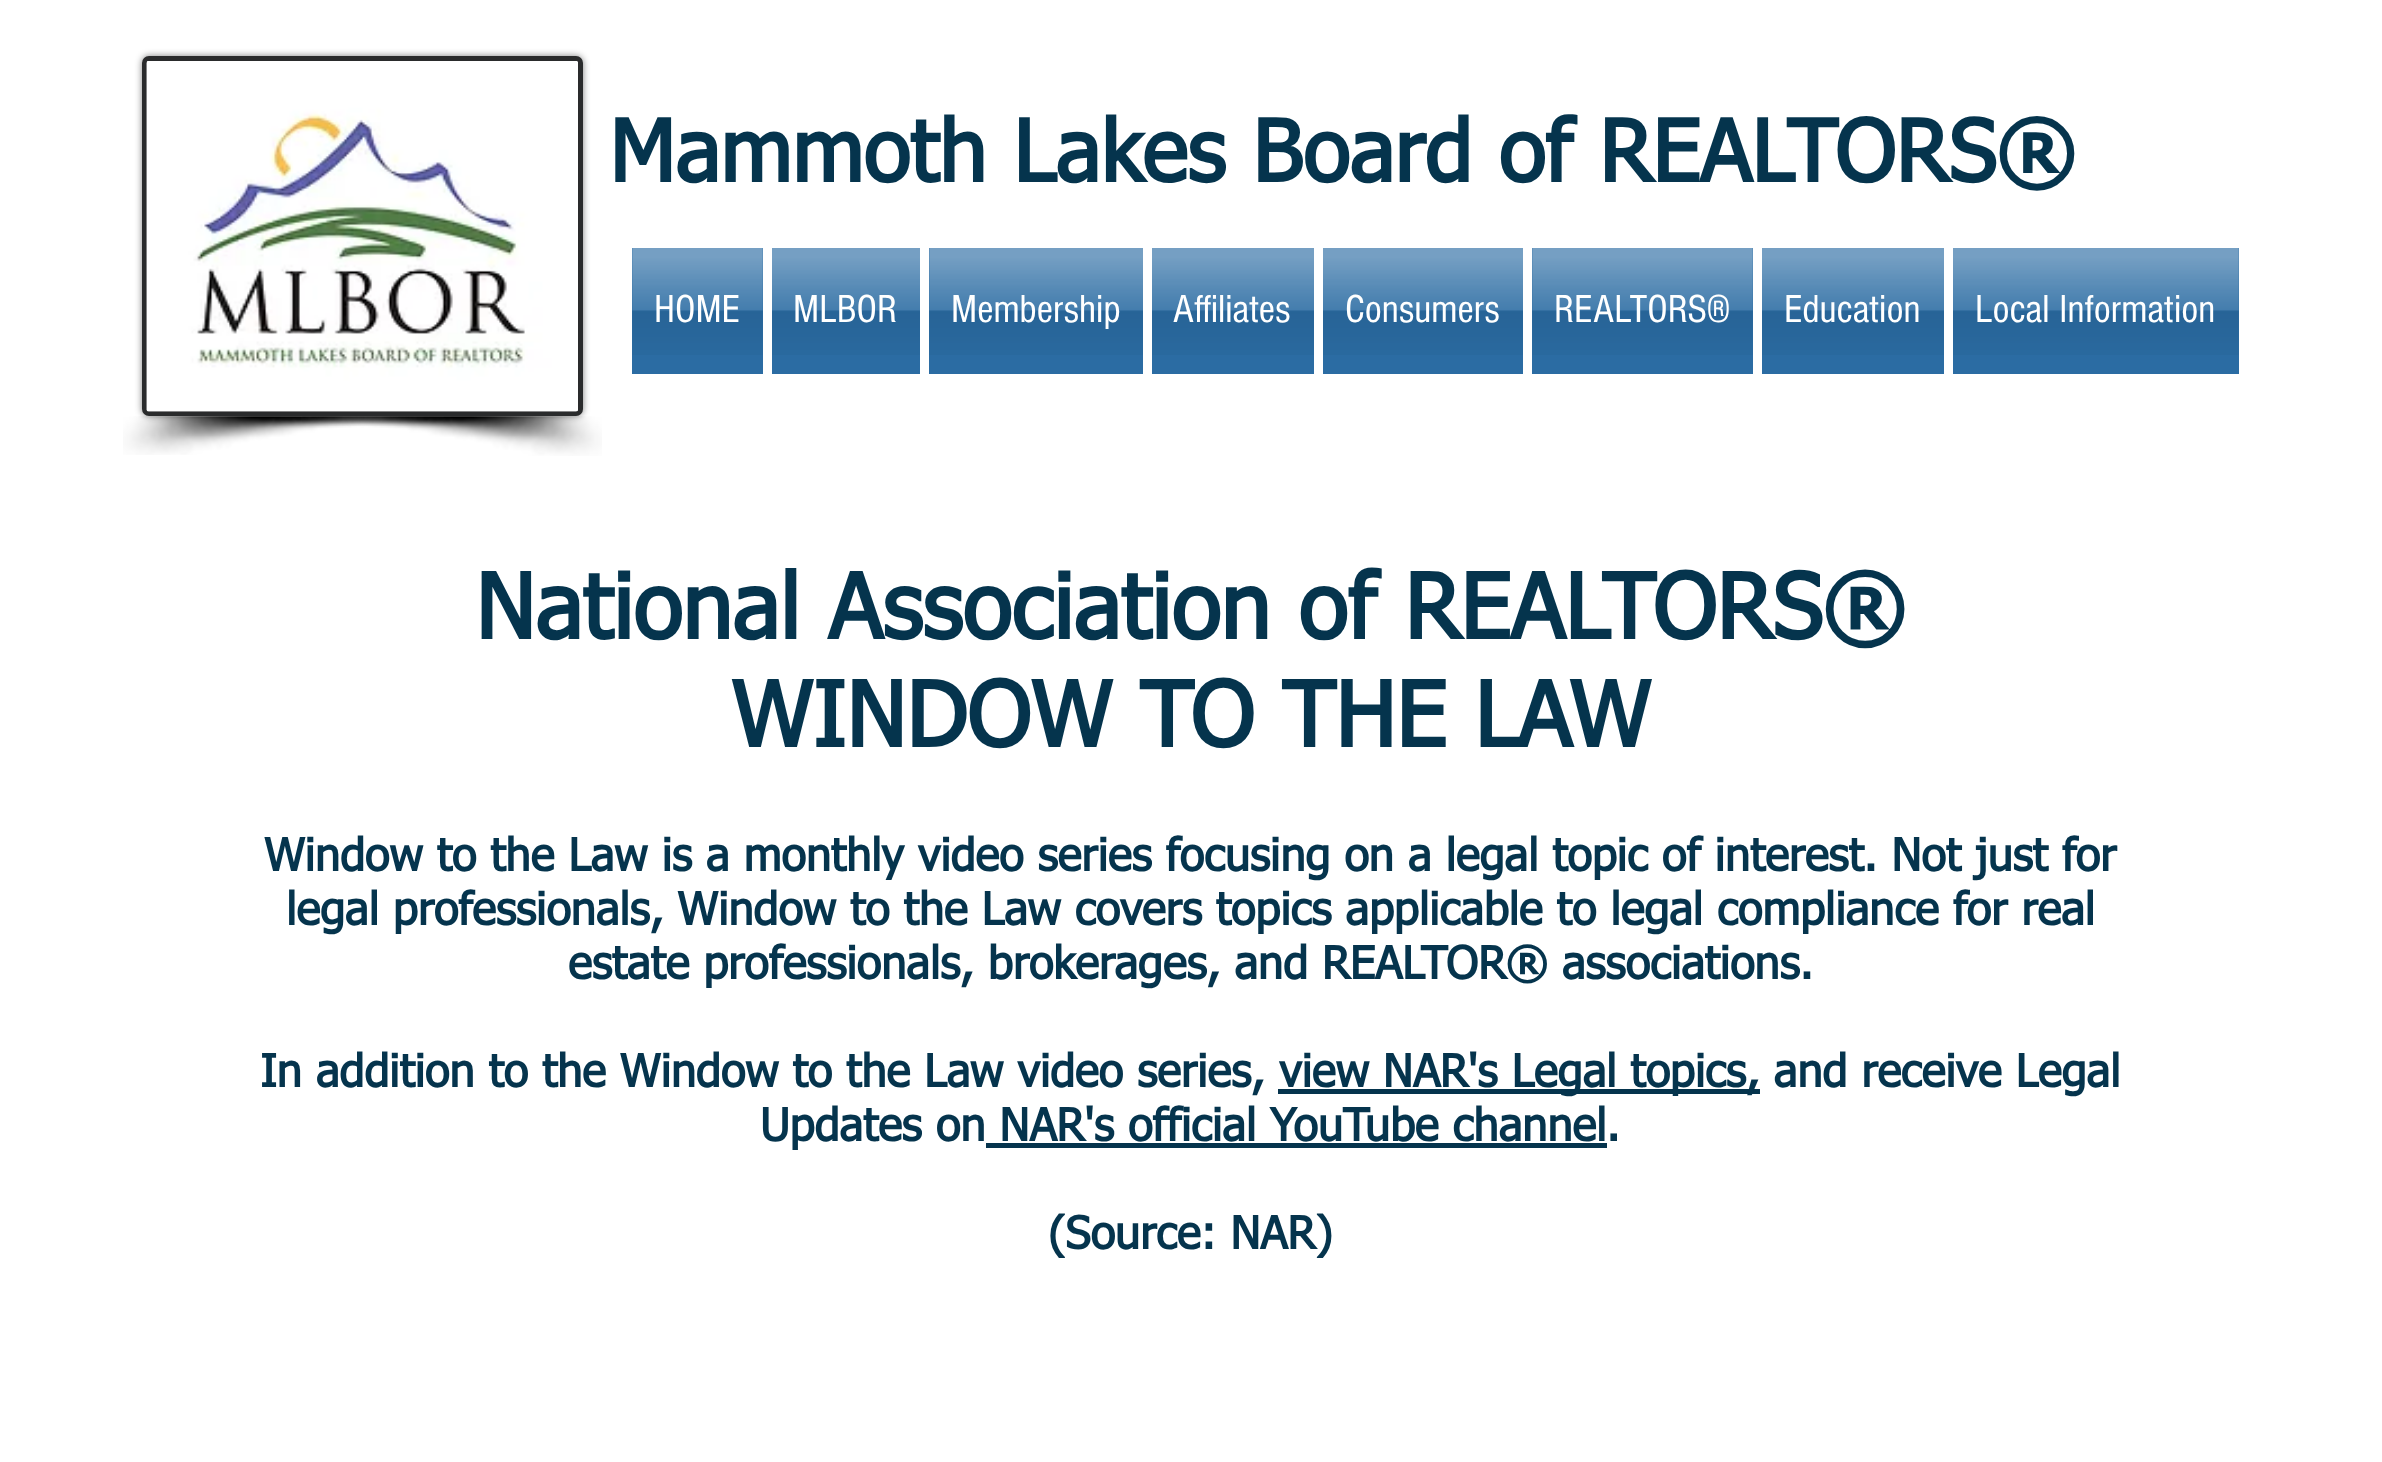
<svg xmlns="http://www.w3.org/2000/svg" width="2382" height="1462">
<rect width="100%" height="100%" fill="#fff"/>
<rect x="142" y="56" width="441" height="360" rx="7" fill="#00000080" filter="blur(3.5px)"/>
<rect x="144.5" y="58.5" width="436" height="355" rx="4.5" fill="none" stroke="#2a2b2c" stroke-width="5"/>
<image x="146" y="61" width="432" height="351" href="media/1.png"/>
<image x="123" y="416" width="331" height="39" href="media/2.png"/>
<image x="302" y="416" width="300" height="40" href="media/3.png"/>
<text x="609" y="182" style="font-family:tahoma;font-size:85.5px;font-weight:bold;fill:#05344d">Mammoth Lakes Board of REALTORS®</text>
<rect x="632" y="248" width="131" height="126" fill="#2b6ca3"/>
<image x="632" y="248" width="131" height="107" href="media/4.png"/>
<text x="654" y="322" style="font-family:'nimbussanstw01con';font-size:40.5px;fill:#fff">HOME</text>
<rect x="772" y="248" width="148" height="126" fill="#2b6ca3"/>
<image x="772" y="248" width="148" height="107" href="media/5.png"/>
<text x="793" y="322" style="font-family:'nimbussanstw01con';font-size:40.5px;fill:#fff">MLBOR</text>
<rect x="929" y="248" width="214" height="126" fill="#2b6ca3"/>
<image x="929" y="248" width="214" height="107" href="media/6.png"/>
<text x="951" y="322" style="font-family:'nimbussanstw01con';font-size:40.5px;fill:#fff">Membership</text>
<rect x="1152" y="248" width="162" height="126" fill="#2b6ca3"/>
<image x="1152" y="248" width="162" height="107" href="media/7.png"/>
<text x="1173" y="322" style="font-family:'nimbussanstw01con';font-size:40.5px;fill:#fff">Affiliates</text>
<rect x="1323" y="248" width="200" height="126" fill="#2b6ca3"/>
<image x="1323" y="248" width="200" height="107" href="media/8.png"/>
<text x="1345" y="322" style="font-family:'nimbussanstw01con';font-size:40.5px;fill:#fff">Consumers</text>
<rect x="1532" y="248" width="221" height="126" fill="#2b6ca3"/>
<image x="1532" y="248" width="221" height="107" href="media/9.png"/>
<text x="1554" y="322" style="font-family:'nimbussanstw01con';font-size:40.5px;fill:#fff">REALTORS®</text>
<rect x="1762" y="248" width="182" height="126" fill="#2b6ca3"/>
<image x="1762" y="248" width="182" height="107" href="media/10.png"/>
<text x="1784" y="322" style="font-family:'nimbussanstw01con';font-size:40.5px;fill:#fff">Education</text>
<rect x="1953" y="248" width="286" height="126" fill="#2b6ca3"/>
<image x="1953" y="248" width="286" height="107" href="media/11.png"/>
<text x="1975" y="322" style="font-family:'nimbussanstw01con';font-size:40.5px;fill:#fff">Local Information</text>
<text x="475" y="639" style="font-family:tahoma;font-size:90px;font-weight:bold;fill:#05344d">National Association of REALTORS®</text>
<text x="731" y="747" style="font-family:tahoma;font-size:90px;font-weight:bold;fill:#05344d">WINDOW TO THE LAW</text>
<text x="264" y="871" style="font-family:tahoma;font-size:45px;font-weight:bold;fill:#05344d">Window to the Law is a monthly video series focusing on a legal topic of interest. Not just for</text>
<text x="286" y="925" style="font-family:tahoma;font-size:45px;font-weight:bold;fill:#05344d">legal professionals, Window to the Law covers topics applicable to legal compliance for real</text>
<text x="568" y="979" style="font-family:tahoma;font-size:45px;font-weight:bold;fill:#05344d">estate professionals, brokerages, and REALTOR® associations.</text>
<text x="260" y="1087" style="font-family:tahoma;font-size:45px;font-weight:bold;fill:#05344d">In addition to the Window to the Law video series,</text>
<rect x="1278" y="1089" width="482" height="5" fill="#05344d"/>
<text x="1279" y="1087" style="font-family:tahoma;font-size:45px;font-weight:bold;fill:#05344d">view NAR's Legal topics, and receive Legal</text>
<text x="760" y="1141" style="font-family:tahoma;font-size:45px;font-weight:bold;fill:#05344d">Updates on NAR's official YouTube channel.</text>
<rect x="986" y="1143" width="621" height="5" fill="#05344d"/>
<text x="1048" y="1249" style="font-family:tahoma;font-size:45px;font-weight:bold;fill:#05344d">(Source: NAR)</text>
</svg>
